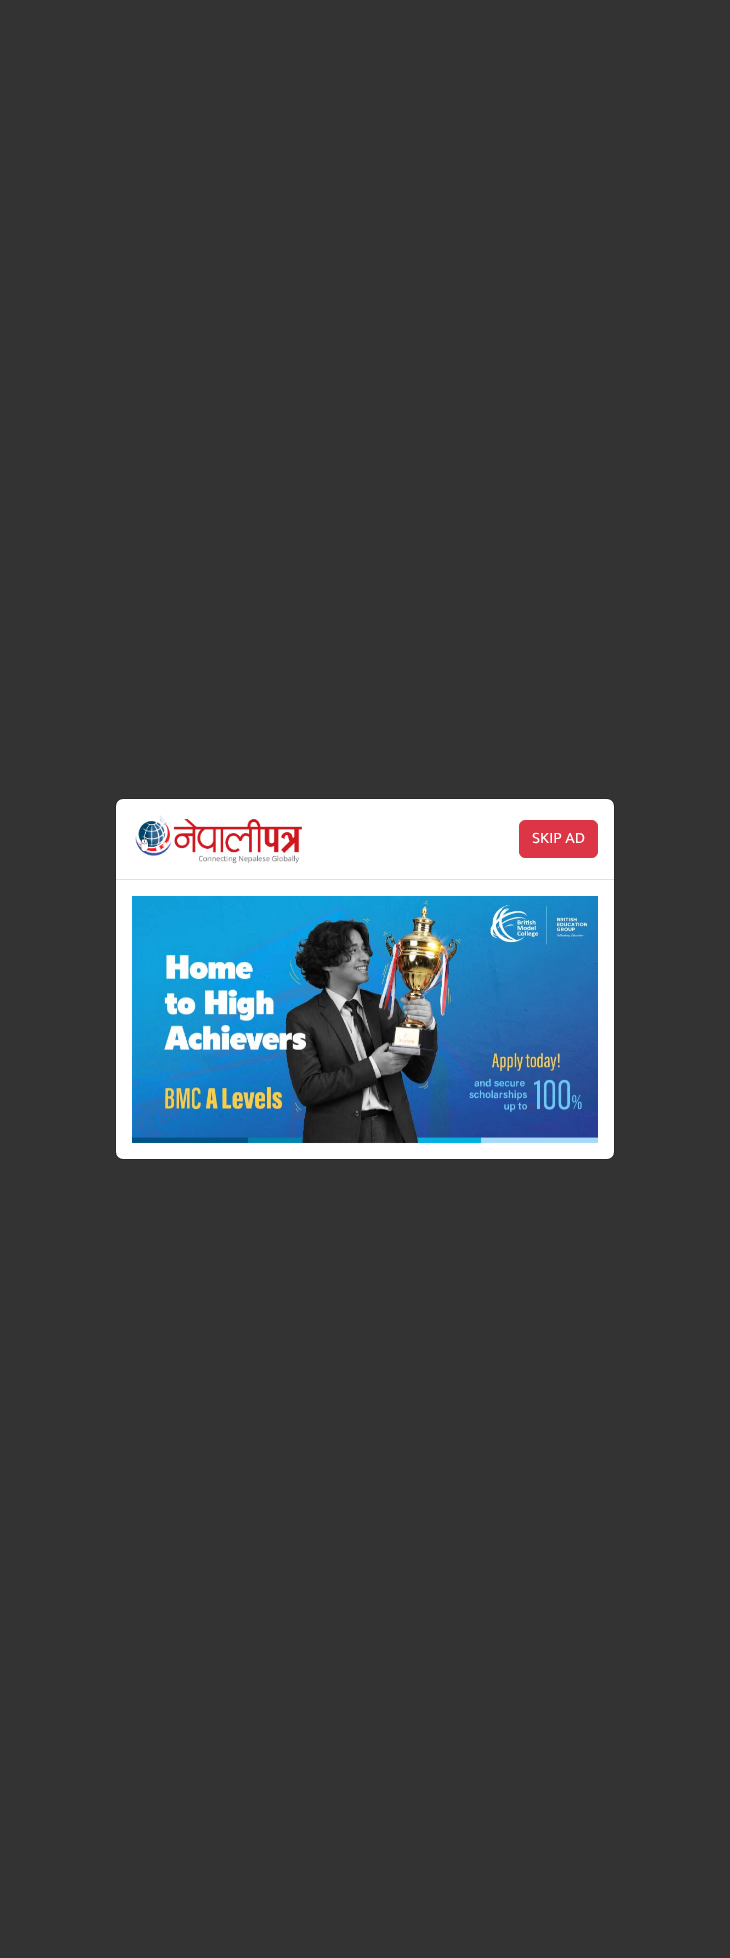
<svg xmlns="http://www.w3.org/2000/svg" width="730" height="1958">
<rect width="100%" height="100%" fill="#333"/>
<rect x="116" y="799" width="498" height="360" rx="7" fill="#fff"/>
<rect x="115.5" y="798.5" width="499" height="361" rx="7.5" fill="none" stroke="#0000002e"/>
<rect x="116" y="879" width="498" height="1" fill="#dee2e6"/>
<image x="135" y="815" width="167" height="49" href="media/1.png"/>
<rect x="519.5" y="820.5" width="78" height="37" rx="5.5" fill="#dc3545" stroke="#dc3545"/>
<text x="532" y="843" style="font-family:Mukta;font-size:16px;fill:#fff">SKIP AD</text>
<image x="132" y="896" width="466" height="248" href="media/2.png"/>
</svg>
